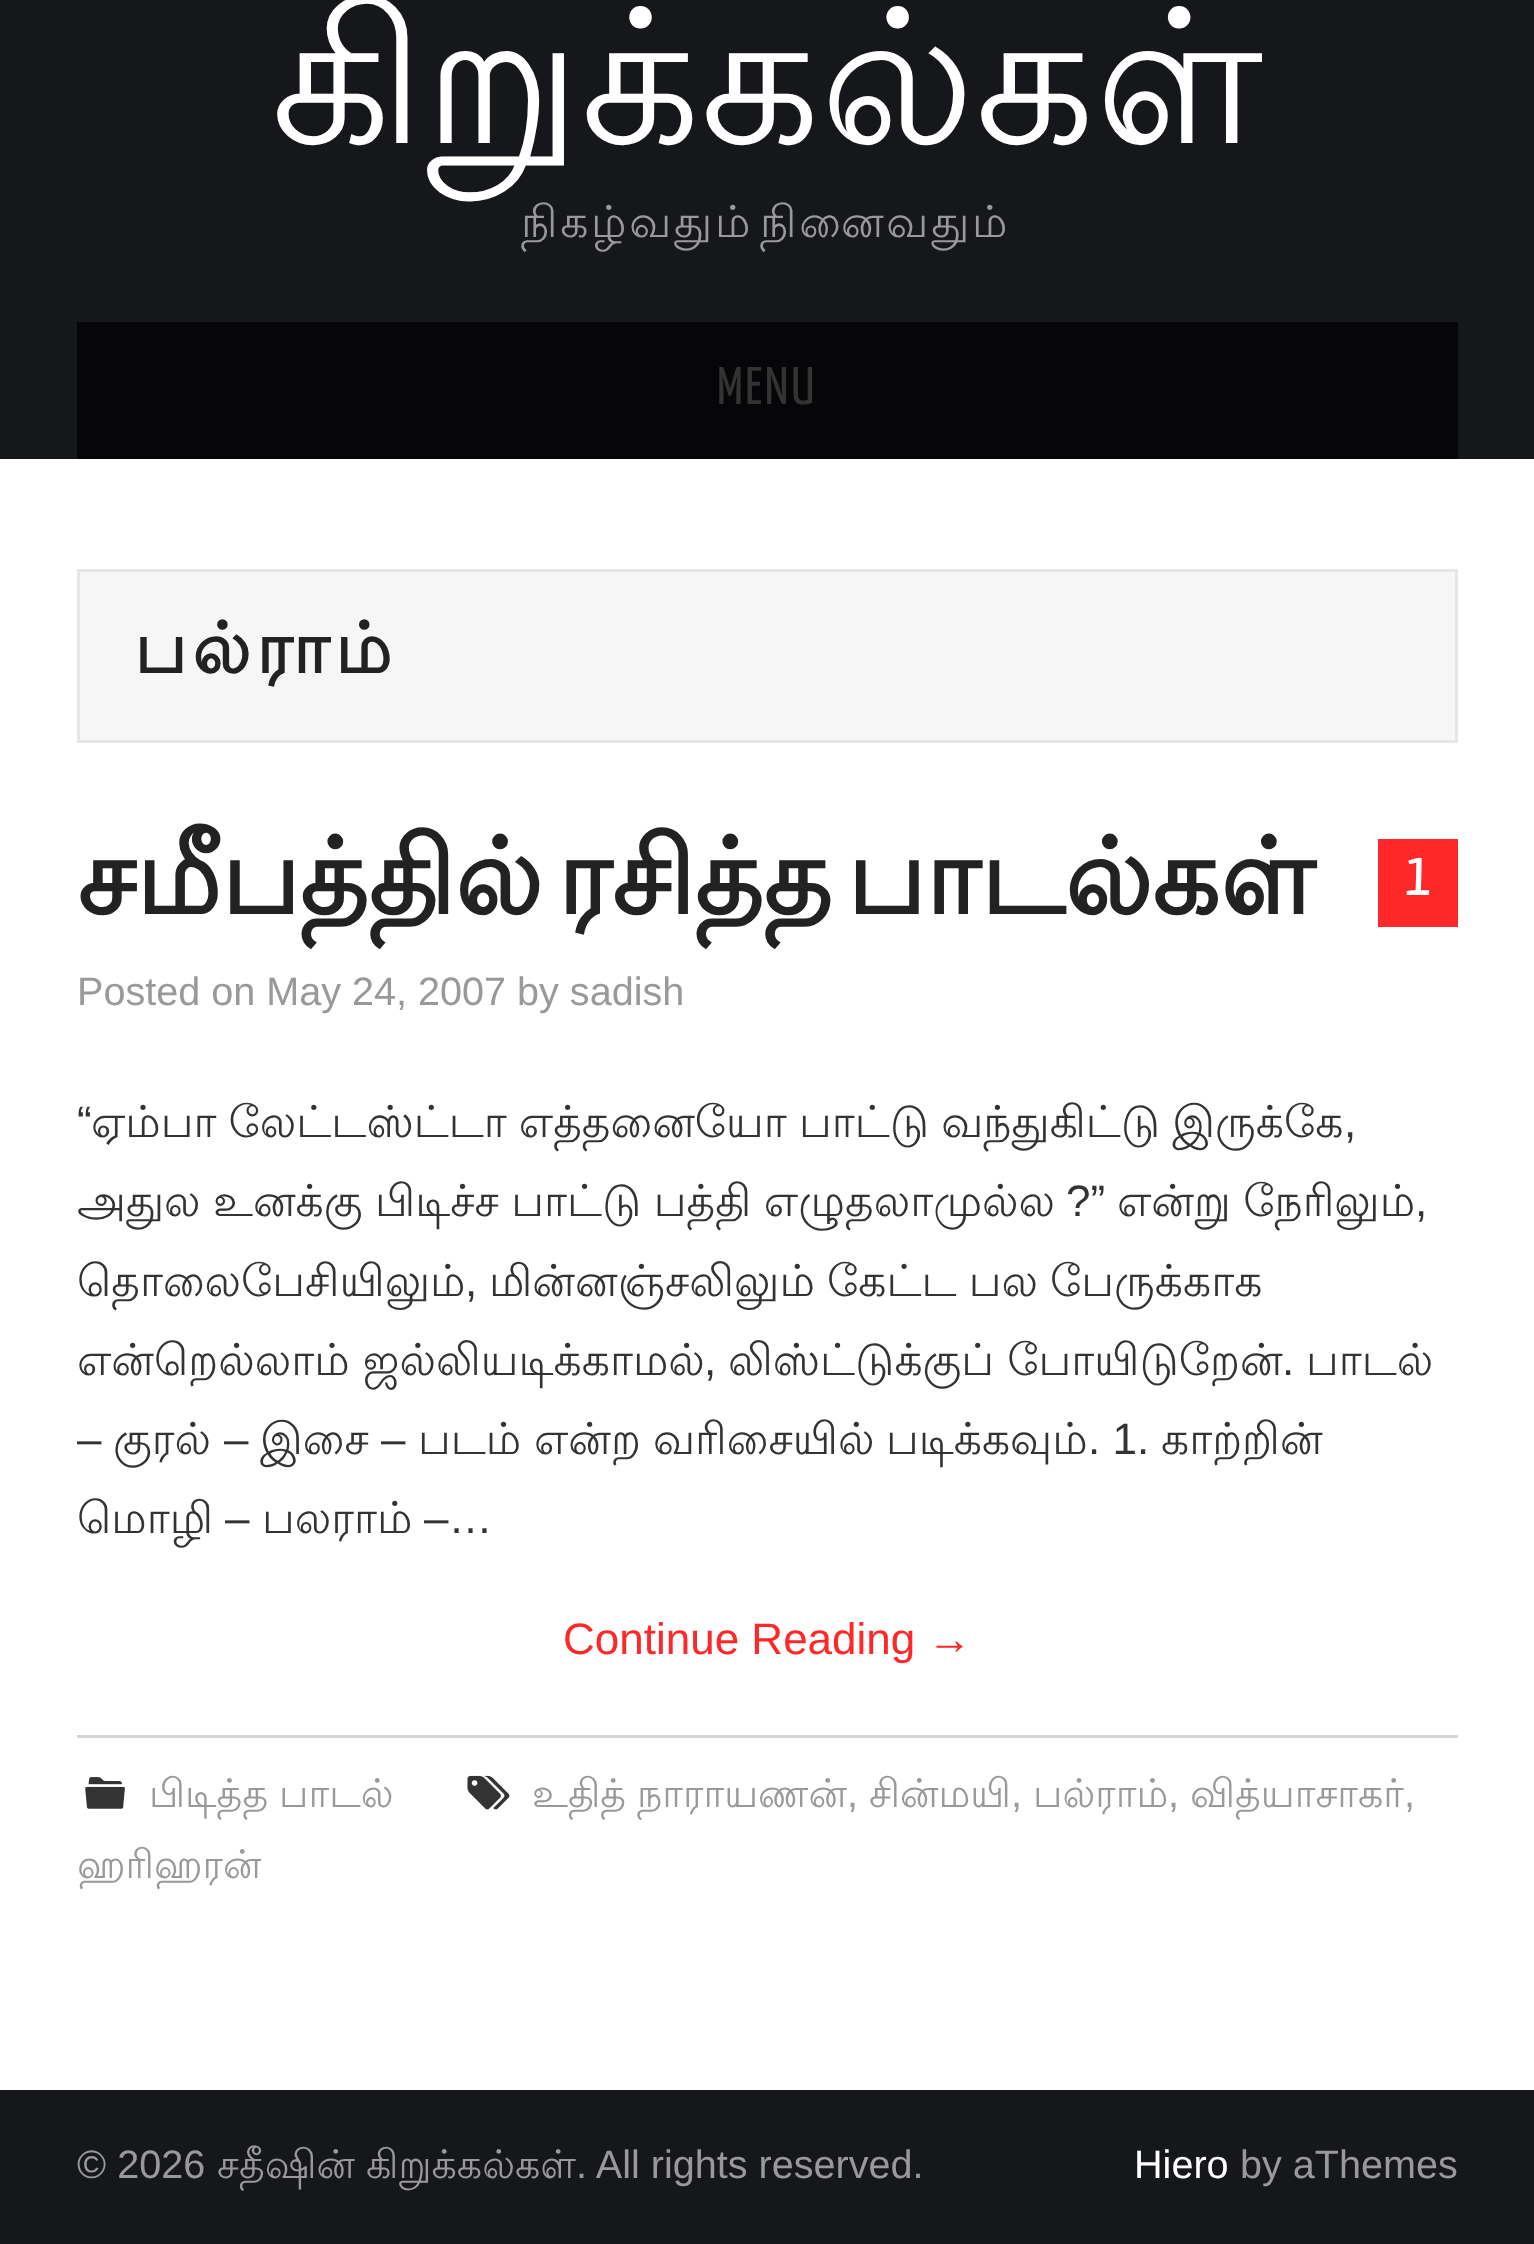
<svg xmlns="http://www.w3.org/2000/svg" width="1534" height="2244">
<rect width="100%" height="100%" fill="#fff"/>
<rect width="1534" height="459" fill="#16171b"/>
<text x="271" y="143" style="font-family:Lohit Tamil;font-size:187px;fill:#fff">கிறுக்கல்கள்</text>
<text x="521" y="237" word-spacing="-9" style="font-family:Lohit Tamil;font-size:44px;letter-spacing:2.75px;fill:#999">நிகழ்வதும் நினைவதும்</text>
<rect x="77" y="322" width="1381" height="137" fill="#060608"/>
<text x="717" y="404" style="font-family:Yanone Kaffeesatz;font-size:53px;letter-spacing:2.75px;fill:#333">MENU</text>
<rect x="78.5" y="570.5" width="1378" height="171" fill="#f6f6f6" stroke="#e6e6e6" stroke-width="3"/>
<text x="134" y="673" style="font-family:Lohit Tamil;font-size:70.5px;font-weight:bold;letter-spacing:5.5px;fill:#222">பல்ராம்</text>
<text x="77" y="914" word-spacing="-17" style="font-family:Lohit Tamil;font-size:105.6px;font-weight:bold;fill:#222">சமீபத்தில் ரசித்த பாடல்கள்</text>
<rect x="1378" y="839" width="80" height="88" fill="#ff2828"/>
<text x="1405" y="895" style="font-family:Yanone Kaffeesatz;font-size:62px;fill:#fff">1</text>
<text x="77" y="1005" style="font-family:Liberation Sans;font-size:39.6px;fill:#999">Posted on May 24, 2007 by sadish</text>
<text x="77" y="1137" style="font-family:Liberation Sans;font-size:44px;fill:#333">“</text>
<text x="91" y="1137" word-spacing="-1" style="font-family:Lohit Tamil;font-size:44px;fill:#333">ஏம்பா லேட்டஸ்ட்டா எத்தனையோ பாட்டு வந்துகிட்டு இருக்கே</text>
<text x="1344" y="1137" style="font-family:Liberation Sans;font-size:44px;fill:#333">,</text>
<text x="77" y="1216" word-spacing="-0.75" style="font-family:Lohit Tamil;font-size:44px;fill:#333">அதுல உனக்கு பிடிச்ச பாட்டு பத்தி எழுதலாமுல்ல</text>
<text x="1066" y="1216" style="font-family:Liberation Sans;font-size:44px;fill:#333">?”</text>
<text x="1117" y="1216" word-spacing="-0.75" style="font-family:Lohit Tamil;font-size:44px;fill:#333">என்று நேரிலும்</text>
<text x="1415" y="1216" style="font-family:Liberation Sans;font-size:44px;fill:#333">,</text>
<text x="77" y="1296" style="font-family:Lohit Tamil;font-size:44px;fill:#333">தொலைபேசியிலும்</text>
<text x="465" y="1296" style="font-family:Liberation Sans;font-size:44px;fill:#333">,</text>
<text x="489" y="1296" word-spacing="-1" style="font-family:Lohit Tamil;font-size:44px;fill:#333">மின்னஞ்சலிலும் கேட்ட பல பேருக்காக</text>
<text x="77" y="1375" style="font-family:Lohit Tamil;font-size:44px;fill:#333">என்றெல்லாம் ஜல்லியடிக்காமல்</text>
<text x="704" y="1375" style="font-family:Liberation Sans;font-size:44px;fill:#333">,</text>
<text x="728" y="1375" style="font-family:Lohit Tamil;font-size:44px;fill:#333">லிஸ்ட்டுக்குப் போயிடுறேன்</text>
<text x="1282" y="1375" style="font-family:Liberation Sans;font-size:44px;fill:#333">.</text>
<text x="1306" y="1375" style="font-family:Lohit Tamil;font-size:44px;fill:#333">பாடல்</text>
<text x="77" y="1454" style="font-family:Liberation Sans;font-size:44px;fill:#333">–</text>
<text x="113" y="1454" style="font-family:Lohit Tamil;font-size:44px;fill:#333">குரல்</text>
<text x="224" y="1454" style="font-family:Liberation Sans;font-size:44px;fill:#333">–</text>
<text x="260" y="1454" style="font-family:Lohit Tamil;font-size:44px;fill:#333">இசை</text>
<text x="381" y="1454" style="font-family:Liberation Sans;font-size:44px;fill:#333">–</text>
<text x="418" y="1454" style="font-family:Lohit Tamil;font-size:44px;fill:#333">படம்</text>
<text x="534" y="1454" style="font-family:Lohit Tamil;font-size:44px;fill:#333">என்ற</text>
<text x="653" y="1454" style="font-family:Lohit Tamil;font-size:44px;fill:#333">வரிசையில்</text>
<text x="886" y="1454" style="font-family:Lohit Tamil;font-size:44px;fill:#333">படிக்கவும்</text>
<text x="1088" y="1454" style="font-family:Liberation Sans;font-size:44px;fill:#333">. 1.</text>
<text x="1161" y="1454" style="font-family:Lohit Tamil;font-size:44px;fill:#333">காற்றின்</text>
<text x="77" y="1533" style="font-family:Lohit Tamil;font-size:44px;fill:#333">மொழி</text>
<text x="225" y="1533" style="font-family:Liberation Sans;font-size:44px;fill:#333">–</text>
<text x="262" y="1533" style="font-family:Lohit Tamil;font-size:44px;fill:#333">பலராம்</text>
<text x="424" y="1533" style="font-family:Liberation Sans;font-size:44px;fill:#333">–…</text>
<text x="563" y="1654" style="font-family:Liberation Sans;font-size:44px;fill:#ff2828">Continue Reading →</text>
<rect x="77" y="1735" width="1381" height="3" fill="#d6d6d6"/>
<image x="467" y="1775" width="43" height="35" href="media/1.png"/>
<text x="532" y="1807" word-spacing="-1" style="font-family:Lohit Tamil;font-size:39.6px;fill:#999">உதித் நாராயணன்</text>
<text x="847" y="1807" style="font-family:Liberation Sans;font-size:39.6px;fill:#999">,</text>
<text x="869" y="1807" style="font-family:Lohit Tamil;font-size:39.6px;fill:#999">சின்மயி</text>
<text x="1011" y="1807" style="font-family:Liberation Sans;font-size:39.6px;fill:#999">,</text>
<text x="1033" y="1807" style="font-family:Lohit Tamil;font-size:39.6px;fill:#999">பல்ராம்</text>
<text x="1168" y="1807" style="font-family:Liberation Sans;font-size:39.6px;fill:#999">,</text>
<text x="1190" y="1807" style="font-family:Lohit Tamil;font-size:39.6px;fill:#999">வித்யாசாகர்</text>
<text x="1404" y="1807" style="font-family:Liberation Sans;font-size:39.6px;fill:#999">,</text>
<text x="77" y="1878" style="font-family:Lohit Tamil;font-size:39.6px;fill:#999">ஹரிஹரன்</text>
<image x="85" y="1777" width="40" height="32" href="media/2.png"/>
<text x="149" y="1807" word-spacing="-1" style="font-family:Lohit Tamil;font-size:39.6px;fill:#999">பிடித்த பாடல்</text>
<rect y="2090" width="1534" height="154" fill="#16171b"/>
<text x="77" y="2178" style="font-family:Liberation Sans;font-size:39.6px;fill:#999">© 2026</text>
<text x="217" y="2178" style="font-family:Lohit Tamil;font-size:39.6px;fill:#999">சதீஷின்</text>
<text x="366" y="2178" style="font-family:Lohit Tamil;font-size:39.6px;fill:#999">கிறுக்கல்கள்</text>
<text x="576" y="2178" style="font-family:Liberation Sans;font-size:39.6px;fill:#999">. All rights reserved.</text>
<text x="1134" y="2178" style="font-family:Liberation Sans;font-size:39.6px;fill:#fff">Hiero</text>
<text x="1240" y="2178" style="font-family:Liberation Sans;font-size:39.6px;fill:#999">by aThemes</text>
</svg>
